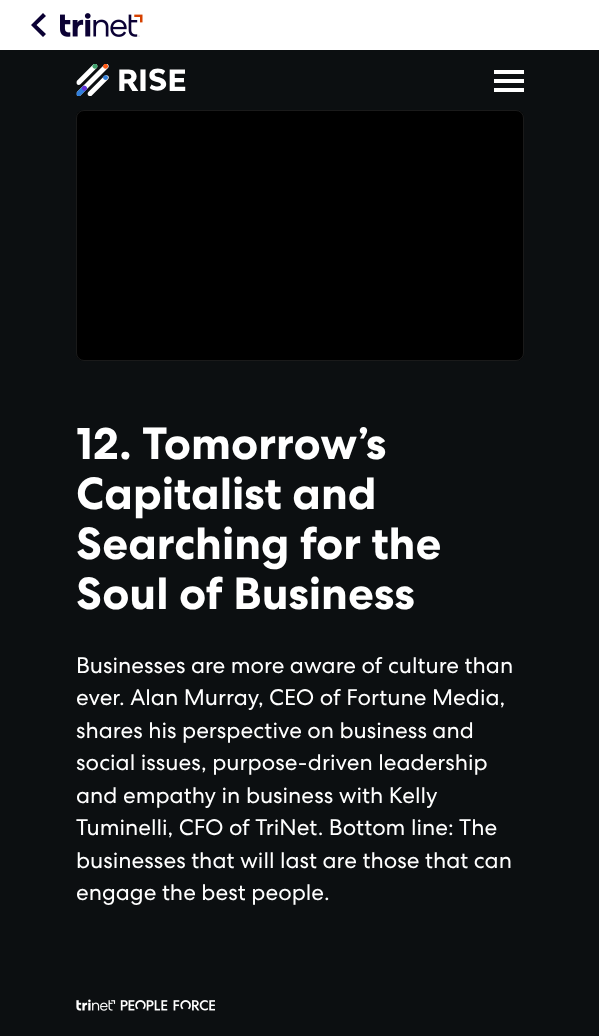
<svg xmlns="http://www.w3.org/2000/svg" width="599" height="1036">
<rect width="100%" height="100%" fill="#0c0f11"/>
<rect width="599" height="50" fill="#fff"/>
<path d="M43 37l3-3l-9.5-9l9.5-9l-3-3l-12 12z" fill="#0b0134"/>
<image x="60" y="13" width="83" height="24" href="media/1.png"/>
<image x="76" y="64" width="110" height="32" href="media/2.png"/>
<rect x="494" y="70" width="30" height="4" fill="#fff"/>
<rect x="494" y="79" width="30" height="4" fill="#fff"/>
<rect x="494" y="88" width="30" height="4" fill="#fff"/>
<rect x="76" y="110" width="448" height="251" rx="8" fill="#000"/>
<rect x="76.5" y="110.5" width="447" height="250" rx="7.5" fill="none" stroke="#ffffff1a"/>
<text x="76" y="459" style="font-family:'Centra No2';font-size:45px;font-weight:bold;fill:#fff">12. Tomorrow’s</text>
<text x="76" y="509" style="font-family:'Centra No2';font-size:45px;font-weight:bold;fill:#fff">Capitalist and</text>
<text x="76" y="559" style="font-family:'Centra No2';font-size:45px;font-weight:bold;fill:#fff">Searching for the</text>
<text x="76" y="609" style="font-family:'Centra No2';font-size:45px;font-weight:bold;fill:#fff">Soul of Business</text>
<text x="76" y="673" style="font-family:'Centra No2';font-size:22.5px;fill:#fff">Businesses are more aware of culture than</text>
<text x="76" y="705" style="font-family:'Centra No2';font-size:22.5px;fill:#fff">ever. Alan Murray, CEO of Fortune Media,</text>
<text x="76" y="738" style="font-family:'Centra No2';font-size:22.5px;fill:#fff">shares his perspective on business and</text>
<text x="76" y="770" style="font-family:'Centra No2';font-size:22.5px;fill:#fff">social issues, purpose-driven leadership</text>
<text x="76" y="803" style="font-family:'Centra No2';font-size:22.5px;fill:#fff">and empathy in business with Kelly</text>
<text x="76" y="835" style="font-family:'Centra No2';font-size:22.5px;fill:#fff">Tuminelli, CFO of TriNet. Bottom line: The</text>
<text x="76" y="868" style="font-family:'Centra No2';font-size:22.5px;fill:#fff">businesses that will last are those that can</text>
<text x="76" y="900" style="font-family:'Centra No2';font-size:22.5px;fill:#fff">engage the best people.</text>
<image x="76" y="999" width="139" height="12" href="media/3.png"/>
</svg>
